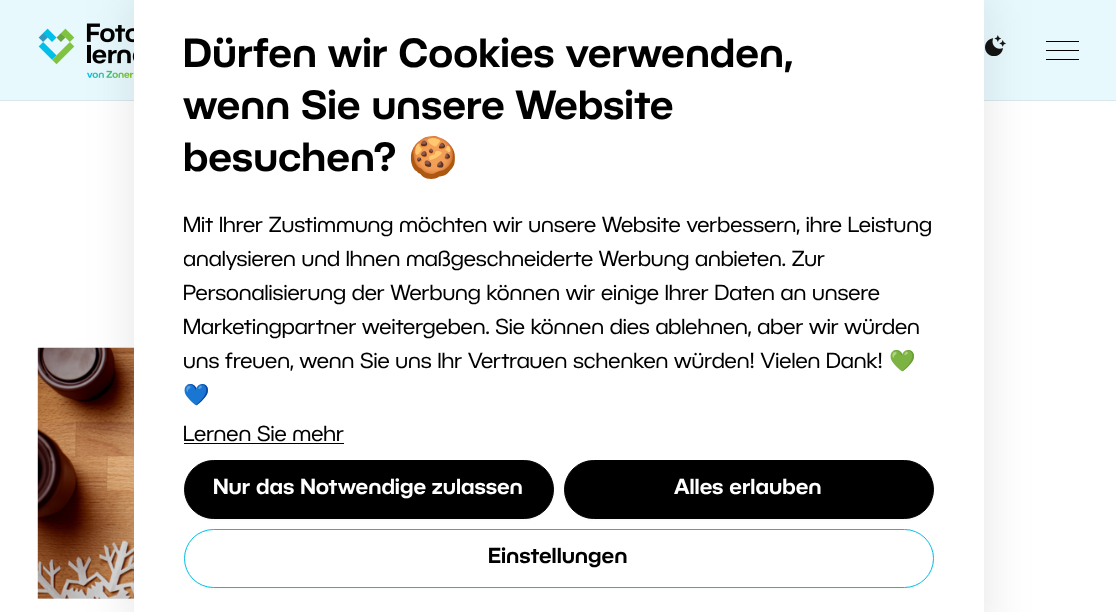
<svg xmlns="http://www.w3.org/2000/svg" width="1116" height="612">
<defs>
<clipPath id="clip1"><rect x="184" y="31" width="750" height="429"/></clipPath>
</defs>
<rect width="100%" height="100%" fill="#fff"/>
<rect width="1116" height="100" fill="#e8f9fd"/>
<rect y="100" width="1116" height="1" fill="#d8e8eb"/>
<image x="38" y="23" width="96" height="55" href="media/1.png"/>
<image x="985" y="35" width="21" height="21" href="media/2.png"/>
<rect x="1046" y="41" width="33" height="1" fill="#000"/>
<rect x="1046" y="50" width="33" height="1" fill="#000"/>
<rect x="1046" y="59" width="33" height="1" fill="#000"/>
<rect x="38" y="598" width="96" height="1" fill="#ececec"/>
<image x="37" y="347" width="97" height="252" href="media/3.png"/>
<rect x="134" y="-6" width="850" height="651" fill="#0000001a" filter="blur(25px)"/>
<rect x="134" width="850" height="612" fill="#fff"/>
<text x="183" y="67" style="font-family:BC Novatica;font-size:40px;font-weight:600;fill:#000">Dürfen wir Cookies verwenden,</text>
<text x="183" y="119" style="font-family:BC Novatica;font-size:40px;font-weight:600;fill:#000">wenn Sie unsere Website</text>
<text x="183" y="171" style="font-family:BC Novatica;font-size:40px;font-weight:600;fill:#000">besuchen?</text>
<text x="408" y="171" style="font-family:Noto Color Emoji;font-size:40px;font-weight:bold;fill:#000">🍪</text>
<text x="183" y="232" style="font-family:BC Novatica;font-size:21.25px;fill:#000">Mit Ihrer Zustimmung möchten wir unsere Website verbessern, ihre Leistung</text>
<g clip-path="url(#clip1)">
<text x="183" y="266" style="font-family:BC Novatica;font-size:21.25px;fill:#000">analysieren und Ihnen maßgeschneiderte Werbung anbieten. Zur</text>
</g>
<text x="183" y="300" style="font-family:BC Novatica;font-size:21.25px;fill:#000">Personalisierung der Werbung können wir einige Ihrer Daten an unsere</text>
<text x="183" y="334" style="font-family:BC Novatica;font-size:21.25px;fill:#000">Marketingpartner weitergeben. Sie können dies ablehnen, aber wir würden</text>
<text x="183" y="368" style="font-family:BC Novatica;font-size:21.25px;fill:#000">uns freuen, wenn Sie uns Ihr Vertrauen schenken würden! Vielen Dank!</text>
<text x="889" y="368" style="font-family:Noto Color Emoji;font-size:21.25px;fill:#000">💚</text>
<g clip-path="url(#clip1)">
<text x="183" y="402" style="font-family:Noto Color Emoji;font-size:21.25px;fill:#000">💙</text>
</g>
<text x="183" y="441" style="font-family:BC Novatica;font-size:21.25px;fill:#000">Lernen Sie mehr</text>
<rect x="184" y="443" width="160" height="1" fill="#000"/>
<rect x="184" y="461" width="370" height="59" rx="29.5" fill="#00ad120d" filter="blur(1px)"/>
<rect x="184.5" y="460.5" width="369" height="58" rx="29" fill="#000" stroke="#000"/>
<text x="213" y="494" style="font-family:BC Novatica;font-size:21.25px;font-weight:600;fill:#fff">Nur das Notwendige zulassen</text>
<rect x="564" y="461" width="370" height="59" rx="29.5" fill="#00ad120d" filter="blur(1px)"/>
<rect x="564.5" y="460.5" width="369" height="58" rx="29" fill="#000" stroke="#000"/>
<text x="674" y="494" style="font-family:BC Novatica;font-size:21.25px;font-weight:600;fill:#fff">Alles erlauben</text>
<rect x="184" y="530" width="750" height="59" rx="29.5" fill="#00ad120d" filter="blur(1px)"/>
<rect x="184.5" y="529.5" width="749" height="58" rx="29" fill="#fff" stroke="#00bfe8"/>
<text x="488" y="563" style="font-family:BC Novatica;font-size:21.25px;font-weight:600;fill:#000">Einstellungen</text>
</svg>
